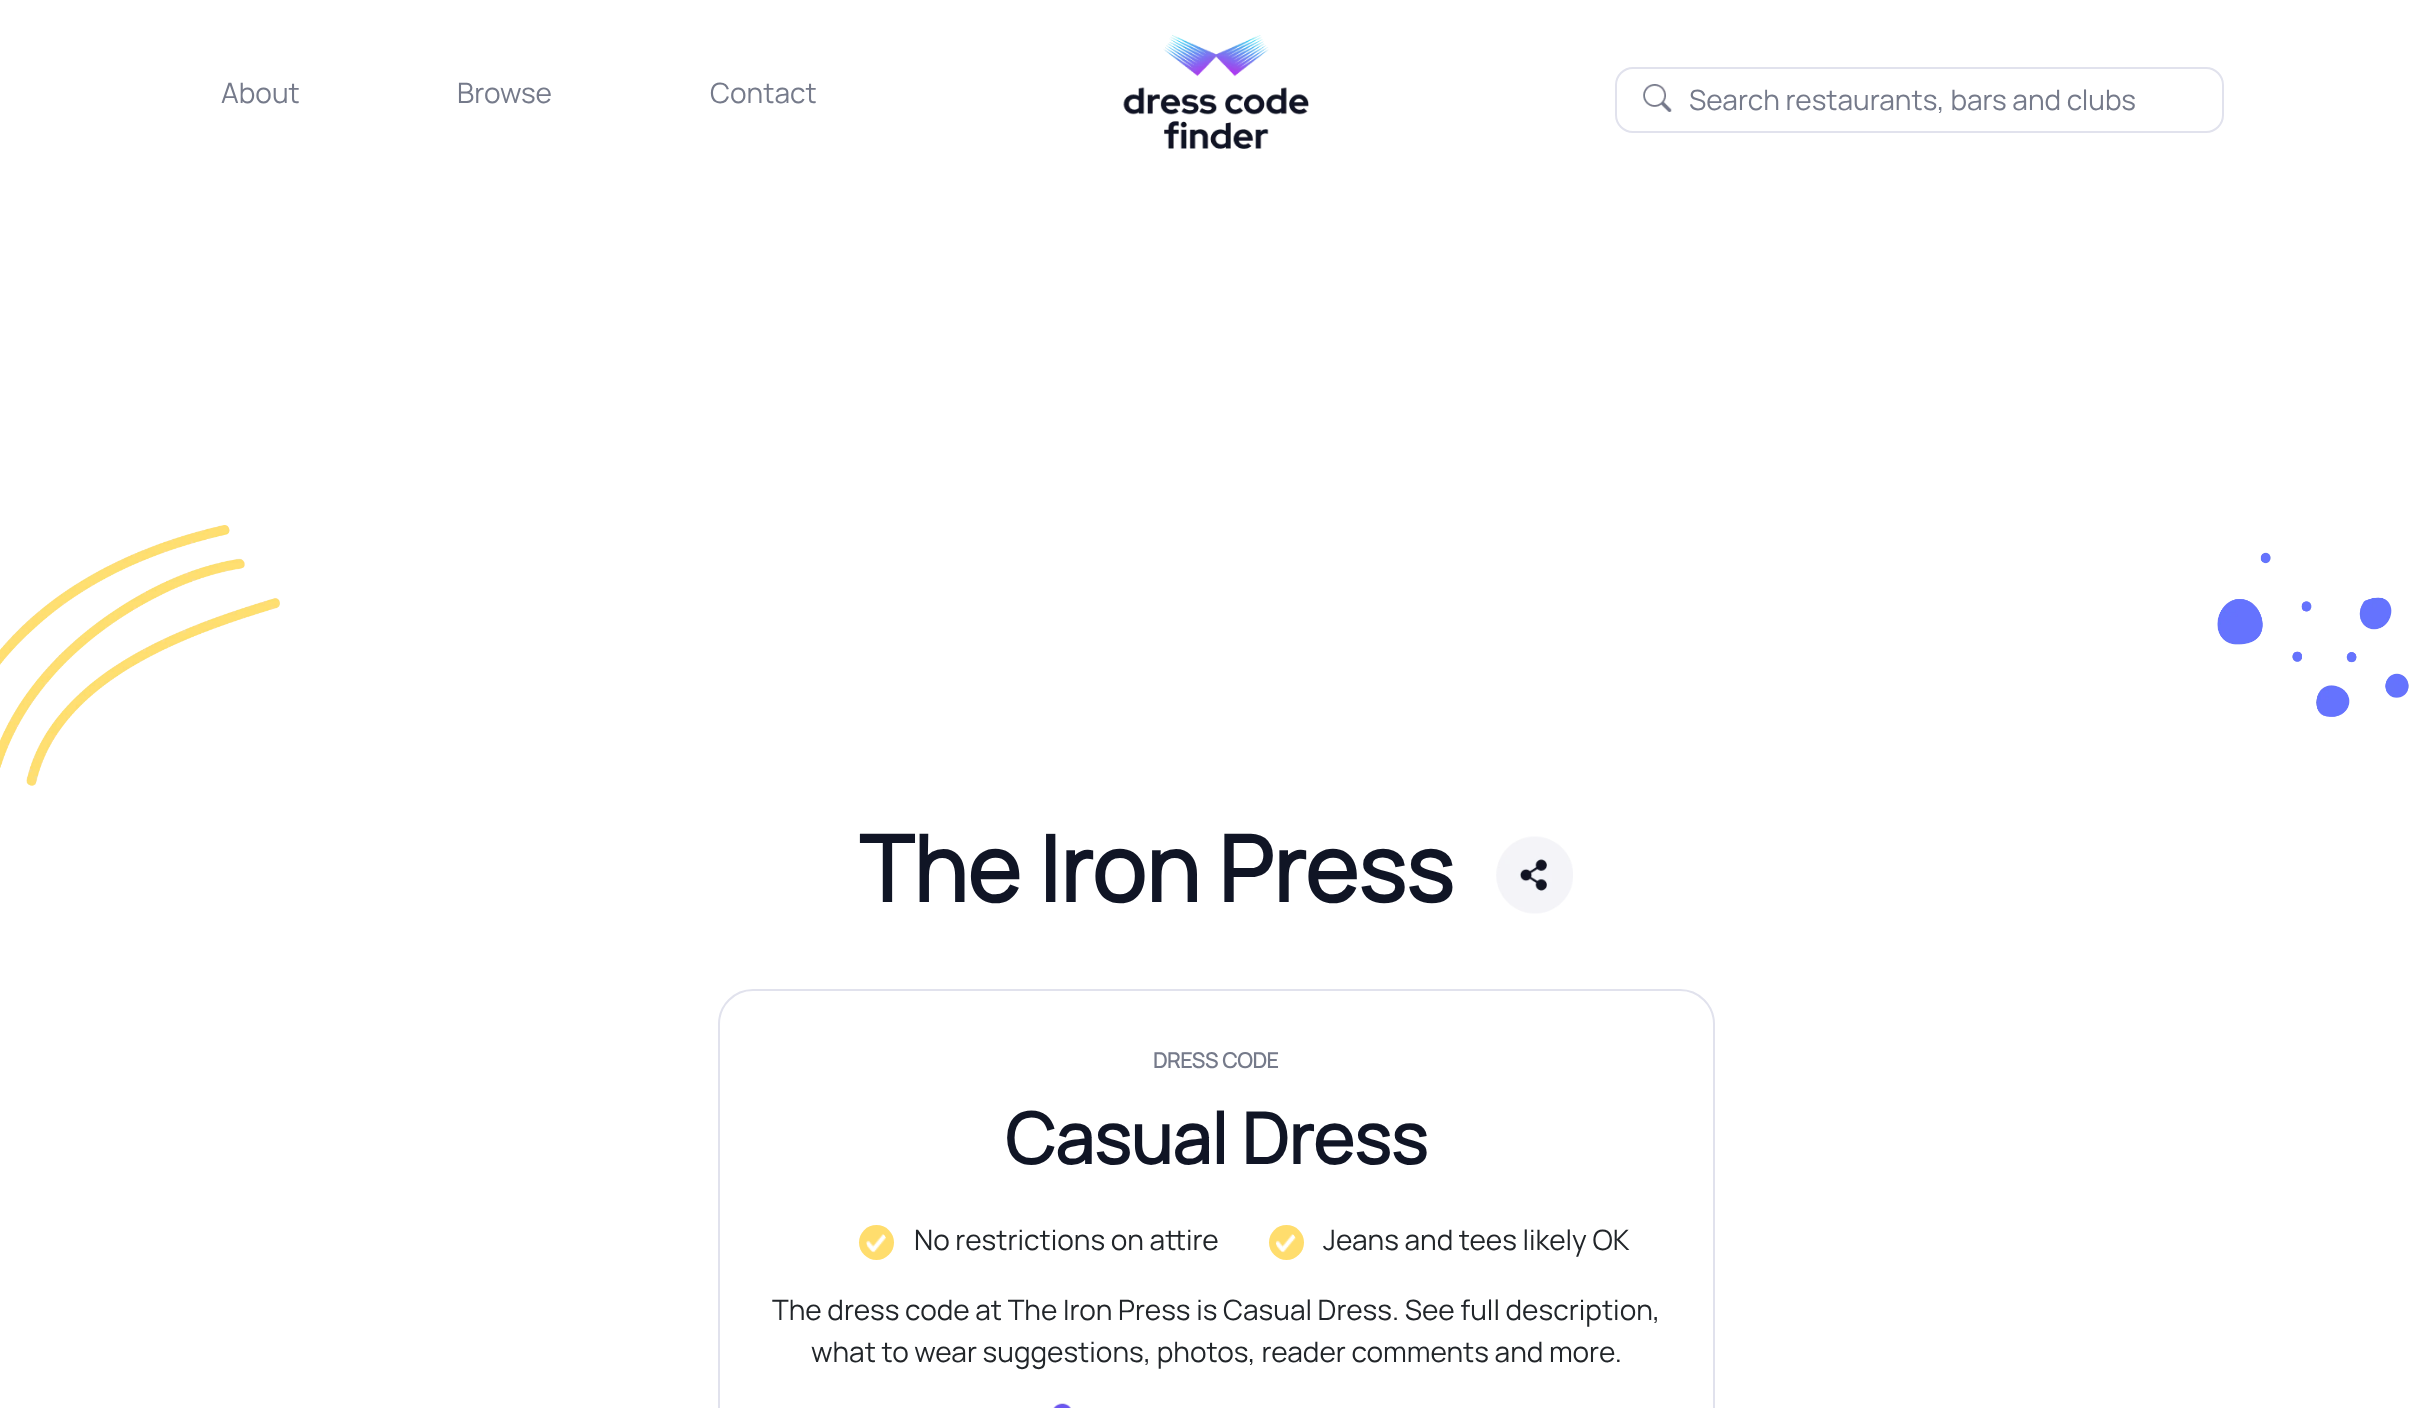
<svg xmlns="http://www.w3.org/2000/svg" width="2432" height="1408">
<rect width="100%" height="100%" fill="#fff"/>
<text x="221" y="103" style="font-family:Manrope;font-size:28px;font-weight:200;fill:#757a8a">About</text>
<text x="457" y="103" style="font-family:Manrope;font-size:28px;font-weight:200;fill:#757a8a">Browse</text>
<text x="710" y="103" style="font-family:Manrope;font-size:28px;font-weight:200;fill:#757a8a">Contact</text>
<image x="1123" y="35" width="186" height="114" href="media/1.png"/>
<rect x="1616" y="68" width="607" height="64" rx="17" fill="none" stroke="#e1e2ed" stroke-width="2"/>
<image x="1643" y="84" width="29" height="28" href="media/2.png"/>
<text x="1689" y="110" style="font-family:Manrope;font-size:28px;font-weight:200;fill:#757a8a">Search restaurants, bars and clubs</text>
<image x="0" y="525" width="280" height="261" href="media/3.png"/>
<image x="2217" y="552" width="192" height="165" href="media/4.png"/>
<text x="859" y="902" style="font-family:Manrope;font-size:91px;font-weight:bold;fill:#101525">The Iron Press</text>
<image x="1496" y="836" width="77" height="78" href="media/5.png"/>
<rect x="719" y="990" width="995" height="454" rx="34" fill="none" stroke="#e1e2ed" stroke-width="2"/>
<text x="1153" y="1068" style="font-family:Manrope;font-size:21px;font-weight:bold;fill:#757a8a">DRESS CODE</text>
<text x="1005" y="1164" style="font-family:Manrope;font-size:70px;font-weight:bold;fill:#101525">Casual Dress</text>
<circle cx="876.5" cy="1242.5" r="17.5" fill="#ffdd6d"/>
<text x="914" y="1250" style="font-family:Manrope;font-size:28px;font-weight:200;fill:#212529">No restrictions on attire</text>
<image x="866" y="1234" width="20" height="19" href="media/6.png"/>
<circle cx="1286.5" cy="1242.5" r="17.5" fill="#ffdd6d"/>
<text x="1323" y="1250" style="font-family:Manrope;font-size:28px;font-weight:200;fill:#212529">Jeans and tees likely OK</text>
<image x="1275" y="1234" width="21" height="19" href="media/7.png"/>
<text x="772" y="1320" style="font-family:Manrope;font-size:28px;font-weight:200;fill:#212529">The dress code at The Iron Press is Casual Dress. See full description,</text>
<text x="811" y="1362" style="font-family:Manrope;font-size:28px;font-weight:200;fill:#212529">what to wear suggestions, photos, reader comments and more.</text>
<image x="1053" y="1403" width="18" height="5" href="media/8.png"/>
</svg>
